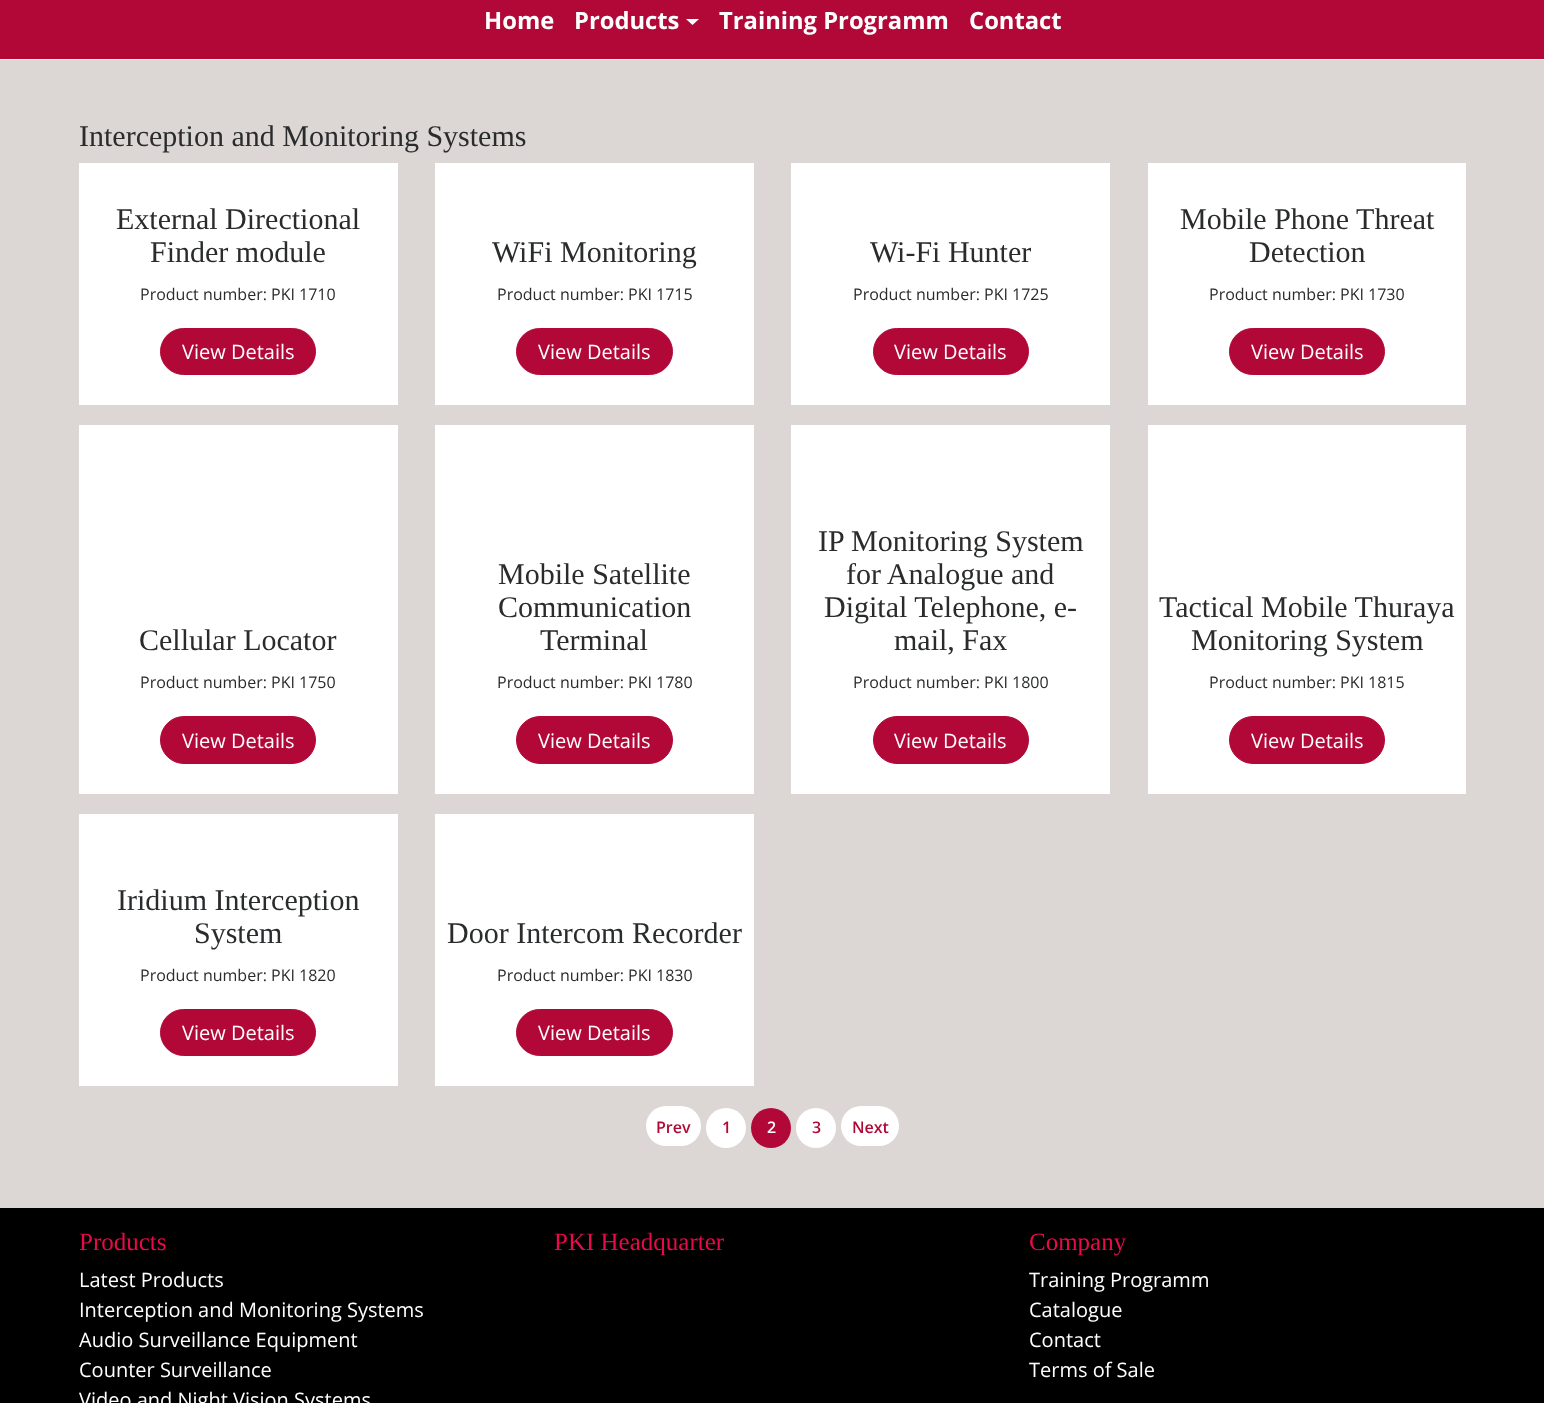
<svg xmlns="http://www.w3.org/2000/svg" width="1544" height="1403">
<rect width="100%" height="100%" fill="#dcd6d4"/>
<rect width="1544" height="59" fill="#b20838"/>
<text x="484" y="29" style="font-family:Open Sans;font-size:23.75px;font-weight:bold;fill:#fff">Home</text>
<text x="574" y="29" style="font-family:Open Sans;font-size:23.75px;font-weight:bold;fill:#fff">Products</text>
<path d="M686 19h13l-6.5 6z" fill="#fff"/>
<text x="719" y="29" style="font-family:Open Sans;font-size:23.75px;font-weight:bold;fill:#fff">Training Programm</text>
<text x="969" y="29" style="font-family:Open Sans;font-size:23.75px;font-weight:bold;fill:#fff">Contact</text>
<rect y="59" width="1544" height="1" fill="#efefef"/>
<text x="79" y="146" style="font-family:Liberation Serif;font-size:30px;fill:#292b2c">Interception and Monitoring Systems</text>
<rect x="79" y="163" width="319" height="242" fill="#fff"/>
<text x="116" y="229" style="font-family:Liberation Serif;font-size:30px;fill:#292b2c">External Directional</text>
<text x="150" y="262" style="font-family:Liberation Serif;font-size:30px;fill:#292b2c">Finder module</text>
<text x="140" y="300" style="font-family:Open Sans;font-size:16px;fill:#292b2c">Product number: PKI 1710</text>
<rect x="160.5" y="328.5" width="155" height="46" rx="23" fill="#b20838" stroke="#b20838"/>
<text x="182" y="359" style="font-family:Open Sans;font-size:20px;fill:#fff">View Details</text>
<rect x="435" y="163" width="319" height="242" fill="#fff"/>
<text x="492" y="262" style="font-family:Liberation Serif;font-size:30px;fill:#292b2c">WiFi Monitoring</text>
<text x="497" y="300" style="font-family:Open Sans;font-size:16px;fill:#292b2c">Product number: PKI 1715</text>
<rect x="516.5" y="328.5" width="156" height="46" rx="23" fill="#b20838" stroke="#b20838"/>
<text x="538" y="359" style="font-family:Open Sans;font-size:20px;fill:#fff">View Details</text>
<rect x="791" y="163" width="319" height="242" fill="#fff"/>
<text x="870" y="262" style="font-family:Liberation Serif;font-size:30px;fill:#292b2c">Wi-Fi Hunter</text>
<text x="853" y="300" style="font-family:Open Sans;font-size:16px;fill:#292b2c">Product number: PKI 1725</text>
<rect x="873.5" y="328.5" width="155" height="46" rx="23" fill="#b20838" stroke="#b20838"/>
<text x="894" y="359" style="font-family:Open Sans;font-size:20px;fill:#fff">View Details</text>
<rect x="1148" y="163" width="318" height="242" fill="#fff"/>
<text x="1180" y="229" style="font-family:Liberation Serif;font-size:30px;fill:#292b2c">Mobile Phone Threat</text>
<text x="1249" y="262" style="font-family:Liberation Serif;font-size:30px;fill:#292b2c">Detection</text>
<text x="1209" y="300" style="font-family:Open Sans;font-size:16px;fill:#292b2c">Product number: PKI 1730</text>
<rect x="1229.5" y="328.5" width="155" height="46" rx="23" fill="#b20838" stroke="#b20838"/>
<text x="1251" y="359" style="font-family:Open Sans;font-size:20px;fill:#fff">View Details</text>
<rect x="79" y="425" width="319" height="369" fill="#fff"/>
<text x="139" y="650" style="font-family:Liberation Serif;font-size:30px;fill:#292b2c">Cellular Locator</text>
<text x="140" y="688" style="font-family:Open Sans;font-size:16px;fill:#292b2c">Product number: PKI 1750</text>
<rect x="160.5" y="716.5" width="155" height="47" rx="23.5" fill="#b20838" stroke="#b20838"/>
<text x="182" y="748" style="font-family:Open Sans;font-size:20px;fill:#fff">View Details</text>
<rect x="435" y="425" width="319" height="369" fill="#fff"/>
<text x="498" y="584" style="font-family:Liberation Serif;font-size:30px;fill:#292b2c">Mobile Satellite</text>
<text x="498" y="617" style="font-family:Liberation Serif;font-size:30px;fill:#292b2c">Communication</text>
<text x="540" y="650" style="font-family:Liberation Serif;font-size:30px;fill:#292b2c">Terminal</text>
<text x="497" y="688" style="font-family:Open Sans;font-size:16px;fill:#292b2c">Product number: PKI 1780</text>
<rect x="516.5" y="716.5" width="156" height="47" rx="23.5" fill="#b20838" stroke="#b20838"/>
<text x="538" y="748" style="font-family:Open Sans;font-size:20px;fill:#fff">View Details</text>
<rect x="791" y="425" width="319" height="369" fill="#fff"/>
<text x="818" y="551" style="font-family:Liberation Serif;font-size:30px;fill:#292b2c">IP Monitoring System</text>
<text x="846" y="584" style="font-family:Liberation Serif;font-size:30px;fill:#292b2c">for Analogue and</text>
<text x="824" y="617" style="font-family:Liberation Serif;font-size:30px;fill:#292b2c">Digital Telephone, e-</text>
<text x="894" y="650" style="font-family:Liberation Serif;font-size:30px;fill:#292b2c">mail, Fax</text>
<text x="853" y="688" style="font-family:Open Sans;font-size:16px;fill:#292b2c">Product number: PKI 1800</text>
<rect x="873.5" y="716.5" width="155" height="47" rx="23.5" fill="#b20838" stroke="#b20838"/>
<text x="894" y="748" style="font-family:Open Sans;font-size:20px;fill:#fff">View Details</text>
<rect x="1148" y="425" width="318" height="369" fill="#fff"/>
<text x="1159" y="617" style="font-family:Liberation Serif;font-size:30px;fill:#292b2c">Tactical Mobile Thuraya</text>
<text x="1191" y="650" style="font-family:Liberation Serif;font-size:30px;fill:#292b2c">Monitoring System</text>
<text x="1209" y="688" style="font-family:Open Sans;font-size:16px;fill:#292b2c">Product number: PKI 1815</text>
<rect x="1229.5" y="716.5" width="155" height="47" rx="23.5" fill="#b20838" stroke="#b20838"/>
<text x="1251" y="748" style="font-family:Open Sans;font-size:20px;fill:#fff">View Details</text>
<rect x="79" y="814" width="319" height="272" fill="#fff"/>
<text x="117" y="910" style="font-family:Liberation Serif;font-size:30px;fill:#292b2c">Iridium Interception</text>
<text x="194" y="943" style="font-family:Liberation Serif;font-size:30px;fill:#292b2c">System</text>
<text x="140" y="981" style="font-family:Open Sans;font-size:16px;fill:#292b2c">Product number: PKI 1820</text>
<rect x="160.5" y="1009.5" width="155" height="46" rx="23" fill="#b20838" stroke="#b20838"/>
<text x="182" y="1040" style="font-family:Open Sans;font-size:20px;fill:#fff">View Details</text>
<rect x="435" y="814" width="319" height="272" fill="#fff"/>
<text x="447" y="943" style="font-family:Liberation Serif;font-size:30px;fill:#292b2c">Door Intercom Recorder</text>
<text x="497" y="981" style="font-family:Open Sans;font-size:16px;fill:#292b2c">Product number: PKI 1830</text>
<rect x="516.5" y="1009.5" width="156" height="46" rx="23" fill="#b20838" stroke="#b20838"/>
<text x="538" y="1040" style="font-family:Open Sans;font-size:20px;fill:#fff">View Details</text>
<rect x="646" y="1106" width="55" height="40" rx="20" fill="#fff"/>
<text x="656" y="1133" style="font-family:Open Sans;font-size:16px;font-weight:600;fill:#b20838">Prev</text>
<circle cx="726" cy="1128" r="20" fill="#fff"/>
<text x="722" y="1133" style="font-family:Open Sans;font-size:16px;font-weight:600;fill:#b20838">1</text>
<circle cx="771" cy="1128" r="20" fill="#b20838"/>
<text x="767" y="1133" style="font-family:Open Sans;font-size:16px;font-weight:600;fill:#fff">2</text>
<circle cx="816" cy="1128" r="20" fill="#fff"/>
<text x="812" y="1133" style="font-family:Open Sans;font-size:16px;font-weight:600;fill:#b20838">3</text>
<rect x="841" y="1106" width="58" height="40" rx="20" fill="#fff"/>
<text x="852" y="1133" style="font-family:Open Sans;font-size:16px;font-weight:600;fill:#b20838">Next</text>
<rect y="1208" width="1544" height="195" fill="#000"/>
<text x="79" y="1250" style="font-family:Liberation Serif;font-size:25px;fill:#e90a4a">Products</text>
<text x="79" y="1287" style="font-family:Open Sans;font-size:20px;fill:#fff">Latest Products</text>
<text x="79" y="1317" style="font-family:Open Sans;font-size:20px;fill:#fff">Interception and Monitoring Systems</text>
<text x="79" y="1347" style="font-family:Open Sans;font-size:20px;fill:#fff">Audio Surveillance Equipment</text>
<text x="79" y="1377" style="font-family:Open Sans;font-size:20px;fill:#fff">Counter Surveillance</text>
<text x="79" y="1407" style="font-family:Open Sans;font-size:20px;fill:#fff">Video and Night Vision Systems</text>
<text x="554" y="1250" style="font-family:Liberation Serif;font-size:25px;fill:#e90a4a">PKI Headquarter</text>
<text x="1029" y="1250" style="font-family:Liberation Serif;font-size:25px;fill:#e90a4a">Company</text>
<text x="1029" y="1287" style="font-family:Open Sans;font-size:20px;fill:#fff">Training Programm</text>
<text x="1029" y="1317" style="font-family:Open Sans;font-size:20px;fill:#fff">Catalogue</text>
<text x="1029" y="1347" style="font-family:Open Sans;font-size:20px;fill:#fff">Contact</text>
<text x="1029" y="1377" style="font-family:Open Sans;font-size:20px;fill:#fff">Terms of Sale</text>
</svg>
